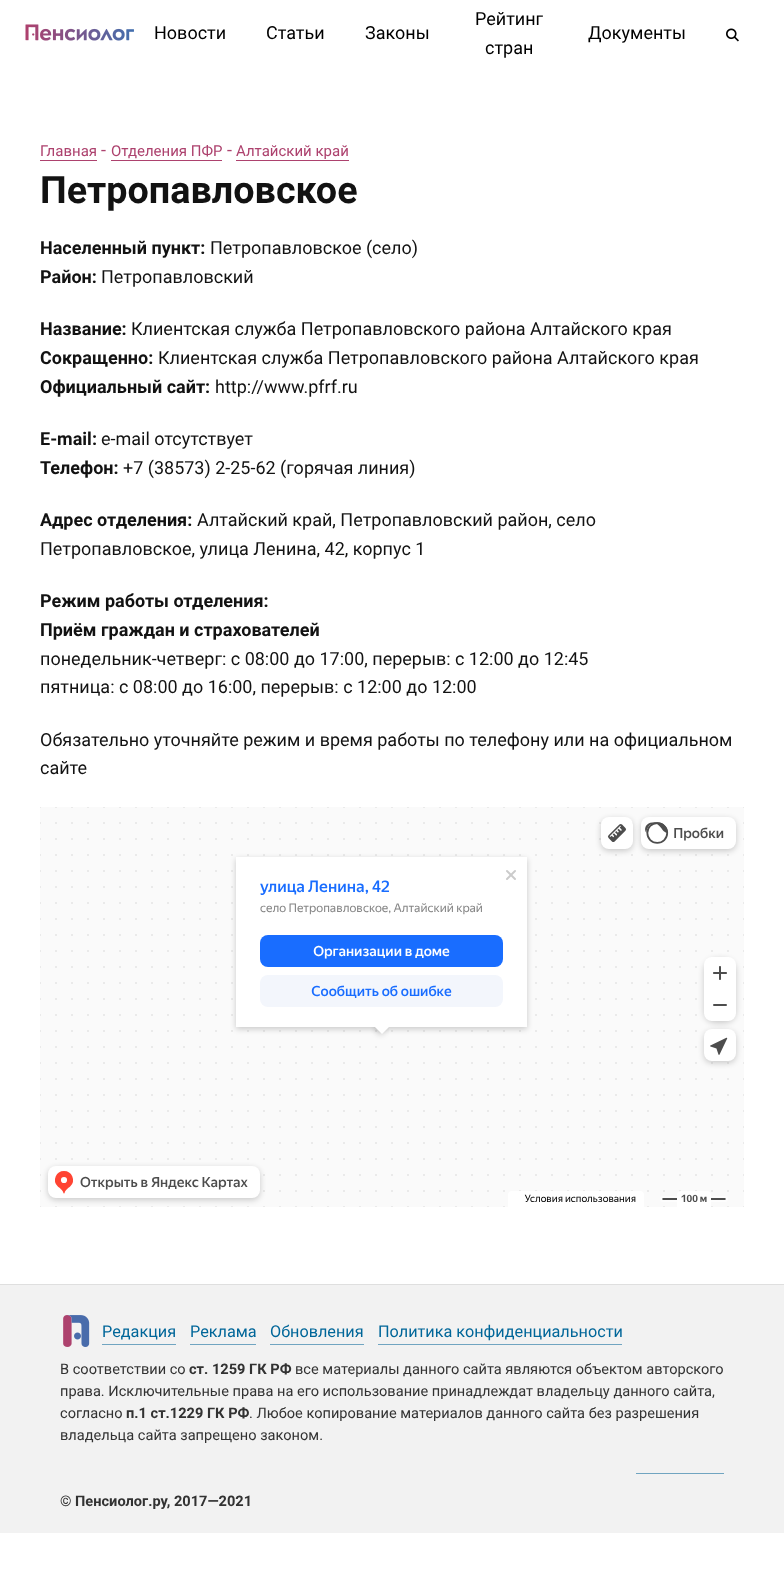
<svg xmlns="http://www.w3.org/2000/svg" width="784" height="1594">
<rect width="100%" height="100%" fill="#fff"/>
<image x="25" y="24" width="109" height="17" href="media/1.png"/>
<text x="154" y="39" style="font-family:Roboto;font-size:18px;fill:#000">Новости</text>
<text x="266" y="39" style="font-family:Roboto;font-size:18px;fill:#000">Статьи</text>
<text x="365" y="39" style="font-family:Roboto;font-size:18px;fill:#000">Законы</text>
<text x="475" y="25" style="font-family:Roboto;font-size:18px;fill:#000">Рейтинг</text>
<text x="485" y="54" style="font-family:Roboto;font-size:18px;fill:#000">стран</text>
<text x="588" y="39" style="font-family:Roboto;font-size:18px;fill:#000">Документы</text>
<image x="726" y="28" width="13" height="14" href="media/2.png"/>
<text x="40" y="156" style="font-family:Roboto;font-size:15px;fill:#ad426e">Главная</text>
<rect x="40" y="160" width="57" height="1" fill="#ad426e"/>
<text x="101" y="156" style="font-family:Roboto;font-size:18px;fill:#ad426e">-</text>
<text x="111" y="156" style="font-family:Roboto;font-size:15px;fill:#ad426e">Отделения ПФР</text>
<rect x="111" y="160" width="111" height="1" fill="#ad426e"/>
<text x="227" y="156" style="font-family:Roboto;font-size:18px;fill:#ad426e">-</text>
<text x="236" y="156" style="font-family:Roboto;font-size:15px;fill:#ad426e">Алтайский край</text>
<rect x="236" y="160" width="113" height="1" fill="#ad426e"/>
<text x="40" y="203" style="font-family:Roboto;font-size:37.75px;font-weight:bold;fill:#121212">Петропавловское</text>
<text x="40" y="254" style="font-family:Roboto;font-size:18px;font-weight:bold;fill:#121212">Населенный пункт:</text>
<text x="210" y="254" style="font-family:Roboto;font-size:18px;fill:#121212">Петропавловское (село)</text>
<text x="40" y="283" style="font-family:Roboto;font-size:18px;font-weight:bold;fill:#121212">Район:</text>
<text x="101" y="283" style="font-family:Roboto;font-size:18px;fill:#121212">Петропавловский</text>
<text x="40" y="335" style="font-family:Roboto;font-size:18px;font-weight:bold;fill:#121212">Название:</text>
<text x="131" y="335" style="font-family:Roboto;font-size:18px;fill:#121212">Клиентская служба Петропавловского района Алтайского края</text>
<text x="40" y="364" style="font-family:Roboto;font-size:18px;font-weight:bold;fill:#121212">Сокращенно:</text>
<text x="158" y="364" style="font-family:Roboto;font-size:18px;fill:#121212">Клиентская служба Петропавловского района Алтайского края</text>
<text x="40" y="393" style="font-family:Roboto;font-size:18px;font-weight:bold;fill:#121212">Официальный сайт:</text>
<text x="215" y="393" style="font-family:Roboto;font-size:18px;fill:#121212">http://www.pfrf.ru</text>
<text x="40" y="445" style="font-family:Roboto;font-size:18px;font-weight:bold;fill:#121212">E-mail:</text>
<text x="101" y="445" style="font-family:Roboto;font-size:18px;fill:#121212">e-mail отсутствует</text>
<text x="40" y="474" style="font-family:Roboto;font-size:18px;font-weight:bold;fill:#121212">Телефон:</text>
<text x="123" y="474" style="font-family:Roboto;font-size:18px;fill:#121212">+7 (38573) 2-25-62 (горячая линия)</text>
<text x="40" y="526" style="font-family:Roboto;font-size:18px;font-weight:bold;fill:#121212">Адрес отделения:</text>
<text x="197" y="526" style="font-family:Roboto;font-size:18px;fill:#121212">Алтайский край, Петропавловский район, село</text>
<text x="40" y="555" style="font-family:Roboto;font-size:18px;fill:#121212">Петропавловское, улица Ленина, 42, корпус 1</text>
<text x="40" y="607" style="font-family:Roboto;font-size:18px;font-weight:bold;fill:#121212">Режим работы отделения:</text>
<text x="40" y="636" style="font-family:Roboto;font-size:18px;font-weight:bold;fill:#121212">Приём граждан и страхователей</text>
<text x="40" y="665" style="font-family:Roboto;font-size:18px;fill:#121212">понедельник-четверг: с 08:00 до 17:00, перерыв: с 12:00 до 12:45</text>
<text x="40" y="693" style="font-family:Roboto;font-size:18px;fill:#121212">пятница: с 08:00 до 16:00, перерыв: с 12:00 до 12:00</text>
<text x="40" y="746" style="font-family:Roboto;font-size:18px;fill:#121212">Обязательно уточняйте режим и время работы по телефону или на официальном</text>
<text x="40" y="774" style="font-family:Roboto;font-size:18px;fill:#121212">сайте</text>
<image x="40" y="807" width="704" height="400" href="media/3.png"/>
<rect y="1285" width="784" height="248" fill="#f2f2f2"/>
<rect y="1284" width="784" height="1" fill="#dfdfdf"/>
<image x="63" y="1315" width="27" height="32" href="media/4.png"/>
<rect x="102" y="1344" width="74" height="1" fill="#71a5c1"/>
<text x="102" y="1337" style="font-family:Roboto;font-size:16.25px;fill:#069">Редакция</text>
<rect x="190" y="1344" width="66" height="1" fill="#71a5c1"/>
<text x="190" y="1337" style="font-family:Roboto;font-size:16.25px;fill:#069">Реклама</text>
<rect x="270" y="1344" width="94" height="1" fill="#71a5c1"/>
<text x="270" y="1337" style="font-family:Roboto;font-size:16.25px;fill:#069">Обновления</text>
<rect x="378" y="1344" width="244" height="1" fill="#71a5c1"/>
<text x="378" y="1337" style="font-family:Roboto;font-size:16.25px;fill:#069">Политика конфиденциальности</text>
<text x="60" y="1374" style="font-family:Roboto;font-size:14.6px;fill:#323232">В соответствии со</text>
<text x="189" y="1374" style="font-family:Roboto;font-size:14.6px;font-weight:bold;fill:#323232">ст. 1259 ГК РФ</text>
<text x="295" y="1374" style="font-family:Roboto;font-size:14.6px;fill:#323232">все материалы данного сайта являются объектом авторского</text>
<text x="60" y="1396" style="font-family:Roboto;font-size:14.6px;fill:#323232">права. Исключительные права на его использование принадлеждат владельцу данного сайта,</text>
<text x="60" y="1418" style="font-family:Roboto;font-size:14.6px;fill:#323232">согласно</text>
<text x="126" y="1418" style="font-family:Roboto;font-size:14.6px;font-weight:bold;fill:#323232">п.1 ст.1229 ГК РФ</text>
<text x="249" y="1418" style="font-family:Roboto;font-size:14.6px;fill:#323232">. Любое копирование материалов данного сайта без разрешения</text>
<text x="60" y="1440" style="font-family:Roboto;font-size:14.6px;fill:#323232">владельца сайта запрещено законом.</text>
<rect x="636" y="1473" width="88" height="1" fill="#71a5c1"/>
<text x="60" y="1506" style="font-family:Roboto;font-size:14.6px;fill:#323232">©</text>
<text x="75" y="1506" style="font-family:Roboto;font-size:14.6px;font-weight:bold;fill:#323232">Пенсиолог.ру, 2017—2021</text>
</svg>
